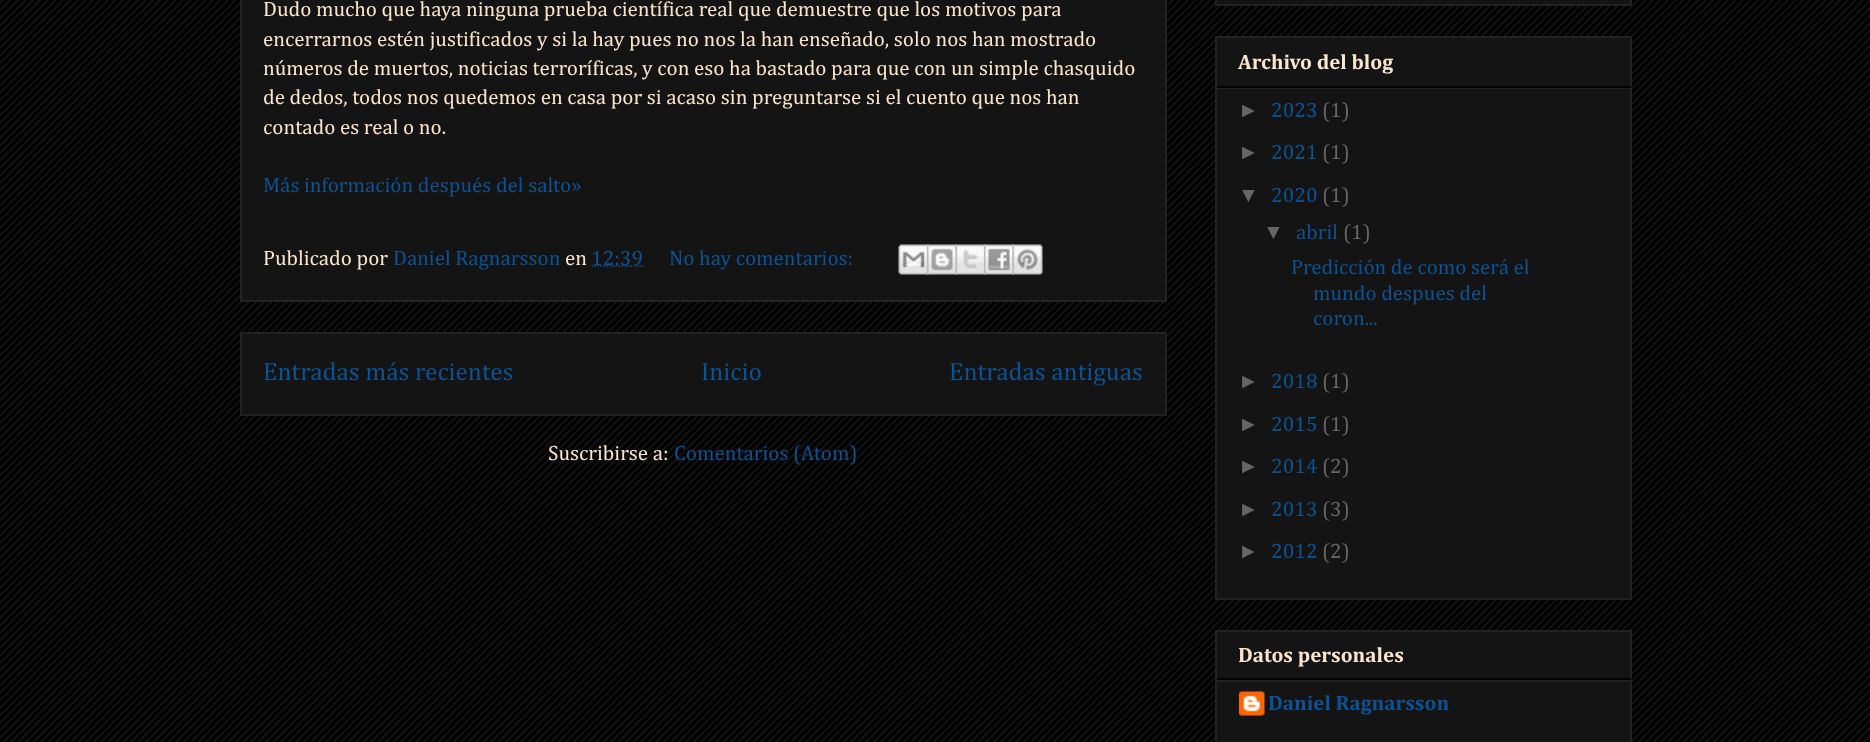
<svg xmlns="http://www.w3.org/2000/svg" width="1870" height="742">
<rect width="100%" height="100%" fill="#000"/>
<image x="0" y="0" width="1870" height="742" href="media/1.png"/>
<rect x="241" y="-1" width="925" height="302" fill="#141414" stroke="#222" stroke-width="2"/>
<text x="263" y="16" style="font-family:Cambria;font-size:21px;fill:#fce5cd">Dudo mucho que haya ninguna prueba científica real que demuestre que los motivos para</text>
<text x="263" y="46" style="font-family:Cambria;font-size:21px;fill:#fce5cd">encerrarnos estén justificados y si la hay pues no nos la han enseñado, solo nos han mostrado</text>
<text x="263" y="75" style="font-family:Cambria;font-size:21px;fill:#fce5cd">números de muertos, noticias terroríficas, y con eso ha bastado para que con un simple chasquido</text>
<text x="263" y="104" style="font-family:Cambria;font-size:21px;fill:#fce5cd">de dedos, todos nos quedemos en casa por si acaso sin preguntarse si el cuento que nos han</text>
<text x="263" y="134" style="font-family:Cambria;font-size:21px;fill:#fce5cd">contado es real o no.</text>
<text x="263" y="192" style="font-family:Cambria;font-size:21px;fill:#0b5394">Más información después del salto»</text>
<text x="263" y="265" style="font-family:Cambria;font-size:21px;fill:#fce5cd">Publicado por</text>
<text x="393" y="265" style="font-family:Cambria;font-size:21px;fill:#0b5394">Daniel Ragnarsson</text>
<text x="565" y="265" style="font-family:Cambria;font-size:21px;fill:#fce5cd">en</text>
<path d="M591.5 266h52" fill="none" stroke="#0b5394" stroke-width="1.5" stroke-dasharray="1.5 1.5"/>
<text x="591" y="265" style="font-family:Cambria;font-size:21px;fill:#0b5394">12:39</text>
<text x="669" y="265" style="font-family:Cambria;font-size:21px;fill:#0b5394">No hay comentarios:</text>
<image x="898" y="244" width="31" height="31" href="media/2.png"/>
<image x="927" y="244" width="30" height="31" href="media/3.png"/>
<image x="955" y="244" width="31" height="31" href="media/4.png"/>
<image x="984" y="244" width="30" height="31" href="media/5.png"/>
<image x="1012" y="244" width="31" height="31" href="media/6.png"/>
<rect x="241" y="333" width="925" height="82" fill="#141414" stroke="#222" stroke-width="2"/>
<text x="263" y="380" style="font-family:Cambria;font-size:25.25px;fill:#0b5394">Entradas más recientes</text>
<text x="701" y="380" style="font-family:Cambria;font-size:25.25px;fill:#0b5394">Inicio</text>
<text x="949" y="380" style="font-family:Cambria;font-size:25.25px;fill:#0b5394">Entradas antiguas</text>
<text x="548" y="460" style="font-family:Cambria;font-size:21px;fill:#fce5cd">Suscribirse a:</text>
<text x="674" y="460" style="font-family:Cambria;font-size:21px;fill:#0b5394">Comentarios (Atom)</text>
<rect x="1216" y="-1" width="415" height="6" fill="#141414" stroke="#222" stroke-width="2"/>
<rect x="1216" y="37" width="415" height="562" fill="#141414" stroke="#222" stroke-width="2"/>
<rect x="1217" y="86" width="414" height="2" fill="#000"/>
<text x="1238" y="69" style="font-family:Cambria;font-size:21px;font-weight:bold;fill:#fce5cd">Archivo del blog</text>
<rect x="1217" y="88" width="414" height="1" fill="#222"/>
<text x="1238" y="117" style="font-family:Liberation Sans;font-size:21px;fill:#666">►</text>
<text x="1271" y="117" style="font-family:Cambria;font-size:21px;fill:#0b5394">2023</text>
<text x="1322" y="117" style="font-family:Cambria;font-size:21px;fill:#666">(1)</text>
<text x="1238" y="159" style="font-family:Liberation Sans;font-size:21px;fill:#666">►</text>
<text x="1271" y="159" style="font-family:Cambria;font-size:21px;fill:#0b5394">2021</text>
<text x="1322" y="159" style="font-family:Cambria;font-size:21px;fill:#666">(1)</text>
<text x="1238" y="202" style="font-family:Liberation Sans;font-size:21px;fill:#666">▼</text>
<text x="1271" y="202" style="font-family:Cambria;font-size:21px;fill:#0b5394">2020</text>
<text x="1322" y="202" style="font-family:Cambria;font-size:21px;fill:#666">(1)</text>
<text x="1263" y="239" style="font-family:Liberation Sans;font-size:21px;fill:#666">▼</text>
<text x="1296" y="239" style="font-family:Cambria;font-size:21px;fill:#0b5394">abril</text>
<text x="1343" y="239" style="font-family:Cambria;font-size:21px;fill:#666">(1)</text>
<text x="1291" y="274" style="font-family:Cambria;font-size:21px;fill:#0b5394">Predicción de como será el</text>
<text x="1313" y="300" style="font-family:Cambria;font-size:21px;fill:#0b5394">mundo despues del</text>
<text x="1313" y="325" style="font-family:Cambria;font-size:21px;fill:#0b5394">coron...</text>
<text x="1238" y="388" style="font-family:Liberation Sans;font-size:21px;fill:#666">►</text>
<text x="1271" y="388" style="font-family:Cambria;font-size:21px;fill:#0b5394">2018</text>
<text x="1322" y="388" style="font-family:Cambria;font-size:21px;fill:#666">(1)</text>
<text x="1238" y="431" style="font-family:Liberation Sans;font-size:21px;fill:#666">►</text>
<text x="1271" y="431" style="font-family:Cambria;font-size:21px;fill:#0b5394">2015</text>
<text x="1322" y="431" style="font-family:Cambria;font-size:21px;fill:#666">(1)</text>
<text x="1238" y="473" style="font-family:Liberation Sans;font-size:21px;fill:#666">►</text>
<text x="1271" y="473" style="font-family:Cambria;font-size:21px;fill:#0b5394">2014</text>
<text x="1322" y="473" style="font-family:Cambria;font-size:21px;fill:#666">(2)</text>
<text x="1238" y="516" style="font-family:Liberation Sans;font-size:21px;fill:#666">►</text>
<text x="1271" y="516" style="font-family:Cambria;font-size:21px;fill:#0b5394">2013</text>
<text x="1322" y="516" style="font-family:Cambria;font-size:21px;fill:#666">(3)</text>
<text x="1238" y="558" style="font-family:Liberation Sans;font-size:21px;fill:#666">►</text>
<text x="1271" y="558" style="font-family:Cambria;font-size:21px;fill:#0b5394">2012</text>
<text x="1322" y="558" style="font-family:Cambria;font-size:21px;fill:#666">(2)</text>
<rect x="1216" y="631" width="415" height="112" fill="#141414" stroke="#222" stroke-width="2"/>
<rect x="1217" y="678" width="414" height="2" fill="#000"/>
<text x="1238" y="662" style="font-family:Cambria;font-size:21px;font-weight:bold;fill:#fce5cd">Datos personales</text>
<rect x="1217" y="680" width="414" height="2" fill="#222"/>
<image x="1239" y="691" width="26" height="25" href="media/7.png"/>
<text x="1268" y="710" style="font-family:Cambria;font-size:21px;font-weight:bold;fill:#0b5394">Daniel Ragnarsson</text>
</svg>
